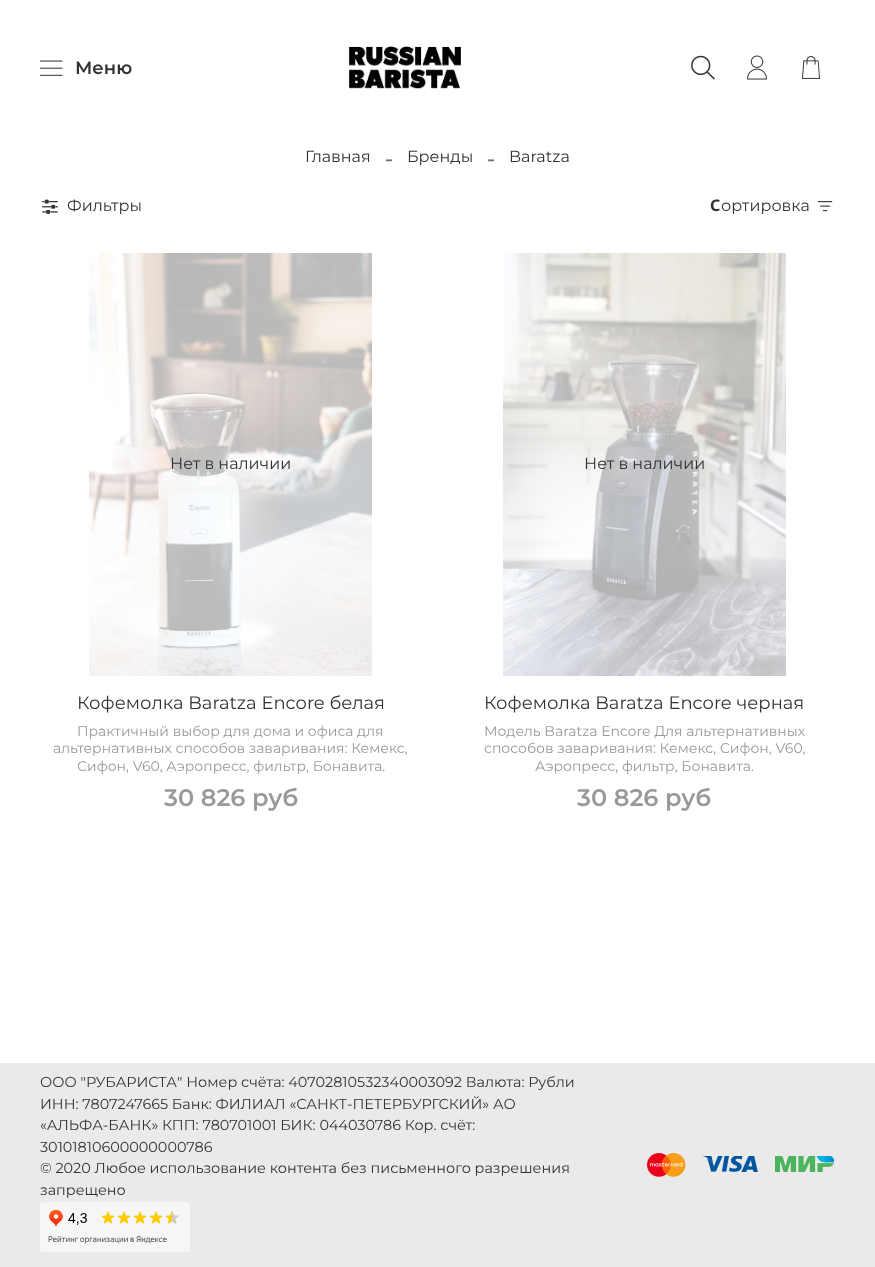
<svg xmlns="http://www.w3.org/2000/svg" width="875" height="1267">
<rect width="100%" height="100%" fill="#fff"/>
<image x="40" y="60" width="23" height="16" href="media/1.png"/>
<text x="75" y="74" style="font-family:Montserrat;font-size:18px;font-weight:600;fill:#333">Меню</text>
<image x="348" y="46" width="113" height="43" href="media/2.png"/>
<image x="691" y="55" width="24" height="25" href="media/3.png"/>
<image x="747" y="55" width="20" height="25" href="media/4.png"/>
<image x="802" y="56" width="18" height="23" href="media/5.png"/>
<text x="305" y="162" style="font-family:Montserrat;font-size:16px;fill:#333">Главная</text>
<text x="385" y="166" style="font-family:Liberation Serif;font-size:24px;fill:#707070">-</text>
<text x="407" y="162" style="font-family:Montserrat;font-size:16px;fill:#333">Бренды</text>
<text x="487" y="166" style="font-family:Liberation Serif;font-size:24px;fill:#707070">-</text>
<text x="509" y="162" style="font-family:Montserrat;font-size:16px;fill:#333">Baratza</text>
<image x="42" y="199" width="16" height="15" href="media/6.png"/>
<text x="67" y="211" style="font-family:Montserrat;font-size:16px;fill:#333">Фильтры</text>
<text x="710" y="211" style="font-family:Noto Sans;font-size:16px;font-weight:bold;fill:#333">С</text>
<text x="721" y="211" style="font-family:Montserrat;font-size:16px;fill:#333">ортировка</text>
<image x="817" y="201" width="16" height="11" href="media/7.png"/>
<image x="89" y="253" width="283" height="423" href="media/8.png"/>
<text x="170" y="469" style="font-family:Montserrat;font-size:16px;fill:#333">Нет в наличии</text>
<text x="77" y="709" style="font-family:Montserrat;font-size:18px;fill:#333">Кофемолка Baratza Encore белая</text>
<text x="77" y="736" style="font-family:Montserrat;font-size:14px;fill:#999">Практичный выбор для дома и офиса для</text>
<text x="53" y="753" style="font-family:Montserrat;font-size:14px;fill:#999">альтернативных способов заваривания: Кемекс,</text>
<text x="77" y="771" style="font-family:Montserrat;font-size:14px;fill:#999">Сифон, V60, Аэропресс, фильтр, Бонавита.</text>
<text x="164" y="806" style="font-family:Montserrat;font-size:24px;font-weight:600;fill:#999">30 826 руб</text>
<image x="503" y="253" width="283" height="423" href="media/9.png"/>
<text x="584" y="469" style="font-family:Montserrat;font-size:16px;fill:#333">Нет в наличии</text>
<text x="484" y="709" style="font-family:Montserrat;font-size:18px;fill:#333">Кофемолка Baratza Encore черная</text>
<text x="484" y="736" style="font-family:Montserrat;font-size:14px;fill:#999">Модель Baratza Encore Для альтернативных</text>
<text x="484" y="753" style="font-family:Montserrat;font-size:14px;fill:#999">способов заваривания: Кемекс, Сифон, V60,</text>
<text x="535" y="771" style="font-family:Montserrat;font-size:14px;fill:#999">Аэропресс, фильтр, Бонавита.</text>
<text x="577" y="806" style="font-family:Montserrat;font-size:24px;font-weight:600;fill:#999">30 826 руб</text>
<rect y="1063" width="875" height="204" fill="#eaeaea"/>
<text x="40" y="1087" style="font-family:Montserrat;font-size:14.4px;fill:#333">ООО "РУБАРИСТА" Номер счёта: 40702810532340003092 Валюта: Рубли</text>
<text x="40" y="1109" style="font-family:Montserrat;font-size:14.4px;fill:#333">ИНН: 7807247665 Банк: ФИЛИАЛ «САНКТ-ПЕТЕРБУРГСКИЙ» АО</text>
<text x="40" y="1130" style="font-family:Montserrat;font-size:14.4px;fill:#333">«АЛЬФА-БАНК» КПП: 780701001 БИК: 044030786 Кор. счёт:</text>
<text x="40" y="1152" style="font-family:Montserrat;font-size:14.4px;fill:#333">30101810600000000786</text>
<text x="40" y="1173" style="font-family:Montserrat;font-size:14.4px;fill:#333">© 2020 Любое использование контента без письменного разрешения</text>
<text x="40" y="1195" style="font-family:Montserrat;font-size:14.4px;fill:#333">запрещено</text>
<image x="40" y="1202" width="150" height="50" href="media/10.png"/>
<image x="647" y="1153" width="39" height="24" href="media/11.png"/>
<image x="702" y="1156" width="56" height="16" href="media/12.png"/>
<image x="775" y="1156" width="59" height="16" href="media/13.png"/>
</svg>
